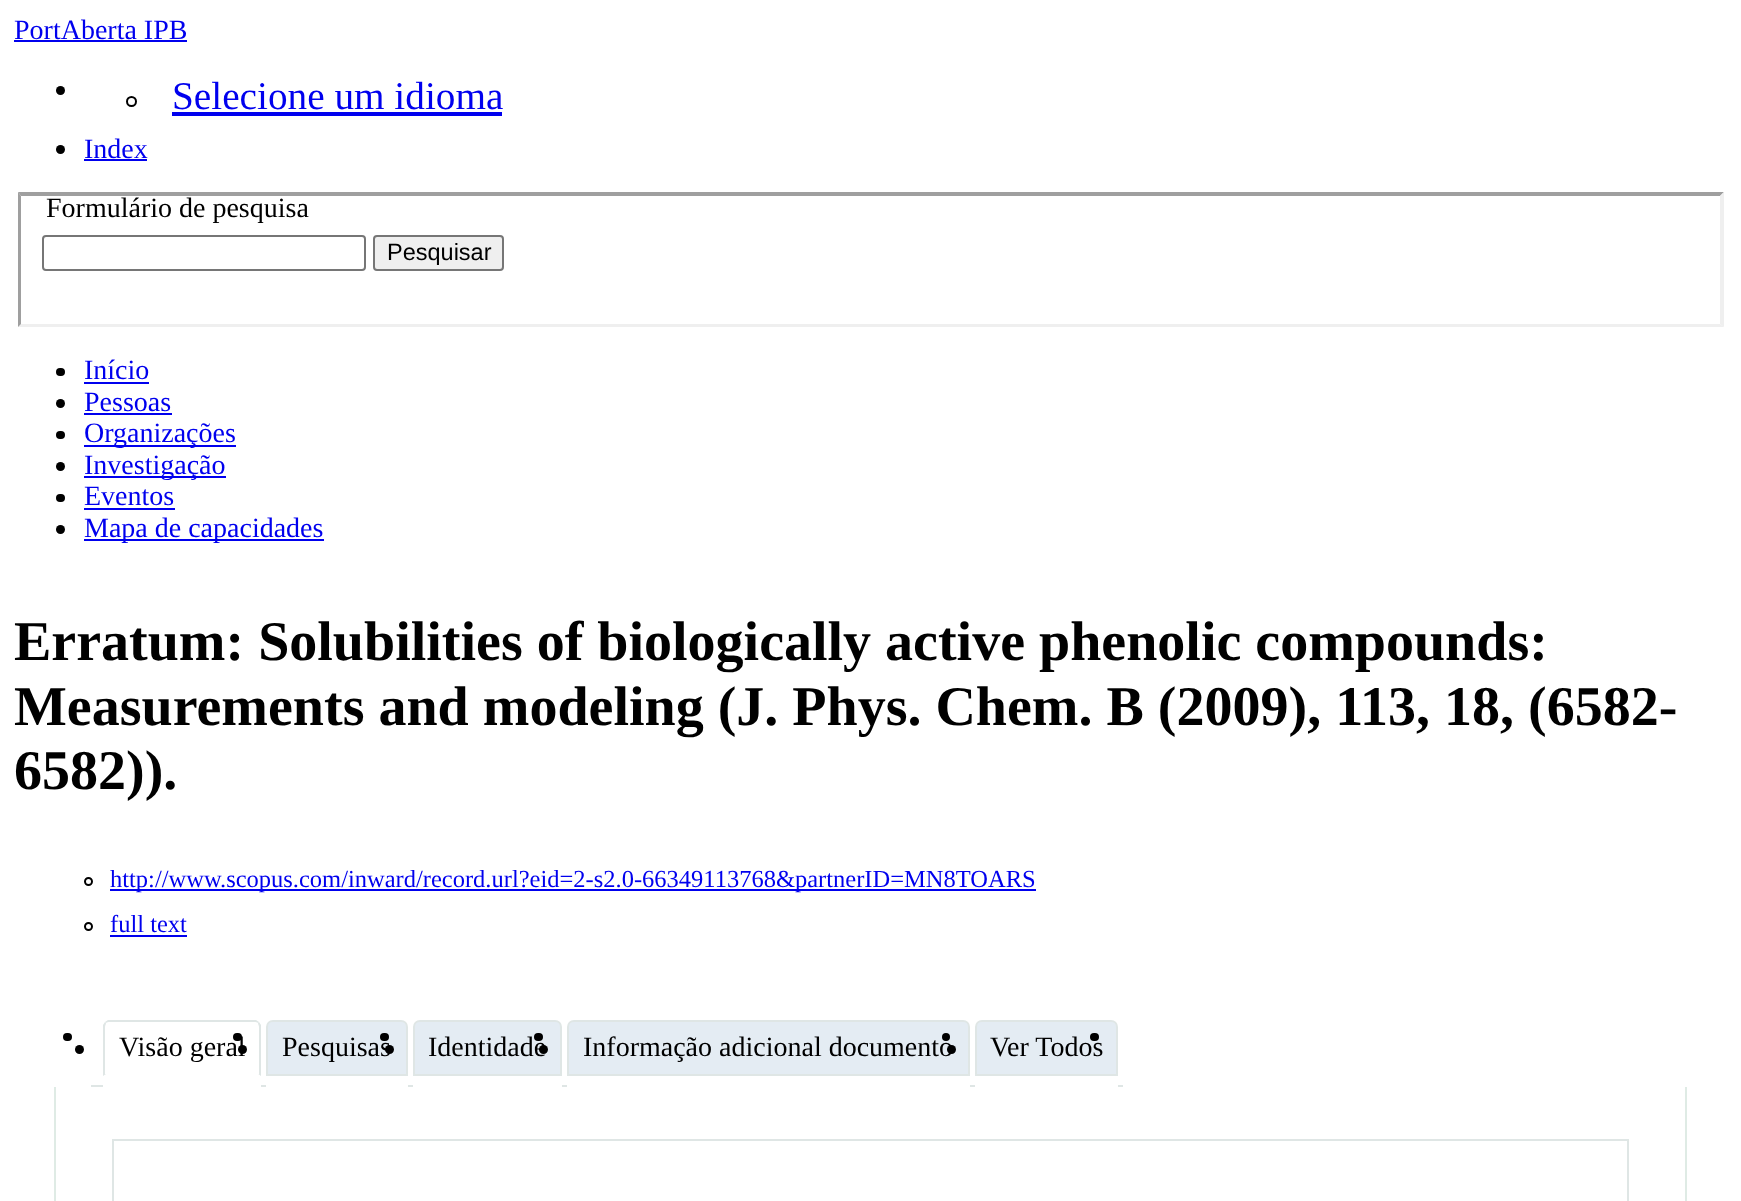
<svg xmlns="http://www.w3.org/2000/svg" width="1741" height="1201">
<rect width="100%" height="100%" fill="#fff"/>
<text x="14" y="39" style="font-family:Liberation Serif;font-size:28px;fill:#00e">PortAberta IPB</text>
<rect x="14" y="40" width="173" height="2" fill="#00e"/>
<circle cx="60.5" cy="90.5" r="4.5" fill="#000"/>
<circle cx="131.5" cy="101.5" r="4.5" fill="none" stroke="#000" stroke-width="2"/>
<text x="172" y="109" style="font-family:Liberation Serif;font-size:39.25px;fill:#00e">Selecione um idioma</text>
<rect x="172" y="112" width="330" height="4" fill="#00e"/>
<circle cx="60.5" cy="149.5" r="4.5" fill="#000"/>
<text x="84" y="158" style="font-family:Liberation Serif;font-size:28px;fill:#00e">Index</text>
<rect x="84" y="159" width="63" height="2" fill="#00e"/>
<path d="M18 192h1706l-4 4h-1699z" fill="#9f9f9f"/>
<path d="M1724 192v135l-4-3v-128z" fill="#efefef"/>
<path d="M1724 327h-1706l3-3h1699z" fill="#efefef"/>
<path d="M18 327v-135l3 4v128z" fill="#9f9f9f"/>
<text x="46" y="217" style="font-family:Liberation Serif;font-size:28px;fill:#000">Formulário de pesquisa</text>
<rect x="43" y="236" width="322" height="34" rx="3" fill="none" stroke="#767676" stroke-width="2"/>
<rect x="374" y="236" width="129" height="34" rx="3" fill="#efefef" stroke="#767676" stroke-width="2"/>
<text x="387" y="260" style="font-family:Liberation Sans;font-size:23.5px;fill:#000">Pesquisar</text>
<rect x="56" y="368" width="9" height="8" rx="4" fill="#000"/>
<text x="84" y="379" style="font-family:Liberation Serif;font-size:28px;fill:#00e">Início</text>
<rect x="84" y="382" width="65" height="2" fill="#00e"/>
<circle cx="60.5" cy="403.5" r="4.5" fill="#000"/>
<text x="84" y="411" style="font-family:Liberation Serif;font-size:28px;fill:#00e">Pessoas</text>
<rect x="84" y="413" width="88" height="2" fill="#00e"/>
<rect x="56" y="431" width="9" height="8" rx="4" fill="#000"/>
<rect x="84" y="445" width="152" height="2" fill="#00e"/>
<text x="84" y="442" style="font-family:Liberation Serif;font-size:28px;fill:#00e">Organizações</text>
<circle cx="60.5" cy="466.5" r="4.5" fill="#000"/>
<rect x="84" y="476" width="142" height="2" fill="#00e"/>
<text x="84" y="474" style="font-family:Liberation Serif;font-size:28px;fill:#00e">Investigação</text>
<rect x="56" y="494" width="9" height="8" rx="4" fill="#000"/>
<text x="84" y="505" style="font-family:Liberation Serif;font-size:28px;fill:#00e">Eventos</text>
<rect x="84" y="508" width="91" height="2" fill="#00e"/>
<circle cx="60.5" cy="529.5" r="4.5" fill="#000"/>
<rect x="84" y="539" width="240" height="2" fill="#00e"/>
<text x="84" y="537" style="font-family:Liberation Serif;font-size:28px;fill:#00e">Mapa de capacidades</text>
<text x="14" y="660" style="font-family:Liberation Serif;font-size:56px;font-weight:bold;fill:#000">Erratum: Solubilities of biologically active phenolic compounds:</text>
<text x="14" y="725" style="font-family:Liberation Serif;font-size:56px;font-weight:bold;fill:#000">Measurements and modeling (J. Phys. Chem. B (2009), 113, 18, (6582-</text>
<text x="14" y="789" style="font-family:Liberation Serif;font-size:56px;font-weight:bold;fill:#000">6582)).</text>
<circle cx="88.5" cy="881.5" r="3.5" fill="none" stroke="#000" stroke-width="2"/>
<rect x="110" y="889" width="926" height="2" fill="#00e"/>
<text x="110" y="887" style="font-family:Liberation Serif;font-size:24.5px;fill:#00e">http://www.scopus.com/inward/record.url?eid=2-s2.0-66349113768&amp;partnerID=MN8TOARS</text>
<circle cx="88.5" cy="926.5" r="3.5" fill="none" stroke="#000" stroke-width="2"/>
<text x="110" y="932" style="font-family:Liberation Serif;font-size:24.5px;fill:#00e">full text</text>
<rect x="110" y="935" width="77" height="2" fill="#00e"/>
<rect x="91" y="1085" width="12" height="2" fill="#dfe6e5"/>
<rect x="63" y="1033" width="9" height="8" rx="4" fill="#000"/>
<path d="M110 1022c-2 0-3 0-4 1l-1-1l3-2h148l3 2l-1 1c-1-1-2-1-4-1z" fill="#dfe6e5"/>
<path d="M261 1076l-3-2h1v-47c0-1-1-3-1-4l1-1l2 3z" fill="#dfe6e5"/>
<path d="M260 1076h-156l2-2h152z" fill="#fff"/>
<path d="M103 1025l2-3l1 1c0 1-1 3-1 4v47h1l-3 2z" fill="#dfe6e5"/>
<circle cx="79.5" cy="1049.5" r="4.5" fill="#000"/>
<text x="119" y="1056" style="font-family:Liberation Serif;font-size:28px;fill:#000">Visão geral</text>
<rect x="261" y="1085" width="5" height="2" fill="#dfe6e5"/>
<rect x="233" y="1033" width="9" height="8" rx="4" fill="#000"/>
<path d="M273 1021h128c3.5 0 6 2.5 6 6v48h-140v-48c0-3.5 2.5-6 6-6z" fill="#e4ecf3" stroke="#dfe6e5" stroke-width="2"/>
<circle cx="242.5" cy="1049.5" r="4.5" fill="#000"/>
<text x="282" y="1056" style="font-family:Liberation Serif;font-size:28px;fill:#000">Pesquisas</text>
<rect x="408" y="1085" width="5" height="2" fill="#dfe6e5"/>
<rect x="380" y="1033" width="9" height="8" rx="4" fill="#000"/>
<path d="M420 1021h135c3.5 0 6 2.5 6 6v48h-147v-48c0-3.5 2.5-6 6-6z" fill="#e4ecf3" stroke="#dfe6e5" stroke-width="2"/>
<circle cx="389.5" cy="1049.5" r="4.5" fill="#000"/>
<text x="428" y="1056" style="font-family:Liberation Serif;font-size:28px;fill:#000">Identidade</text>
<rect x="562" y="1085" width="5" height="2" fill="#dfe6e5"/>
<rect x="534" y="1033" width="9" height="8" rx="4" fill="#000"/>
<path d="M574 1021h389c3.5 0 6 2.5 6 6v48h-401v-48c0-3.5 2.5-6 6-6z" fill="#e4ecf3" stroke="#dfe6e5" stroke-width="2"/>
<circle cx="543.5" cy="1049.5" r="4.5" fill="#000"/>
<text x="583" y="1056" style="font-family:Liberation Serif;font-size:28px;fill:#000">Informação adicional documento</text>
<rect x="970" y="1085" width="5" height="2" fill="#dfe6e5"/>
<circle cx="946" cy="1037" r="4" fill="#000"/>
<path d="M982 1021h129c3.5 0 6 2.5 6 6v48h-141v-48c0-3.5 2.5-6 6-6z" fill="#e4ecf3" stroke="#dfe6e5" stroke-width="2"/>
<circle cx="951.5" cy="1049.5" r="4.5" fill="#000"/>
<text x="990" y="1056" style="font-family:Liberation Serif;font-size:28px;fill:#000">Ver Todos</text>
<rect x="1118" y="1085" width="5" height="2" fill="#dfe6e5"/>
<rect x="1090" y="1033" width="9" height="8" rx="4" fill="#000"/>
<rect x="1685" y="1087" width="2" height="114" fill="#dfebe5"/>
<rect x="54" y="1087" width="2" height="114" fill="#dfebe5"/>
<rect x="113" y="1140" width="1515" height="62" fill="none" stroke="#dfe6e5" stroke-width="2"/>
</svg>
